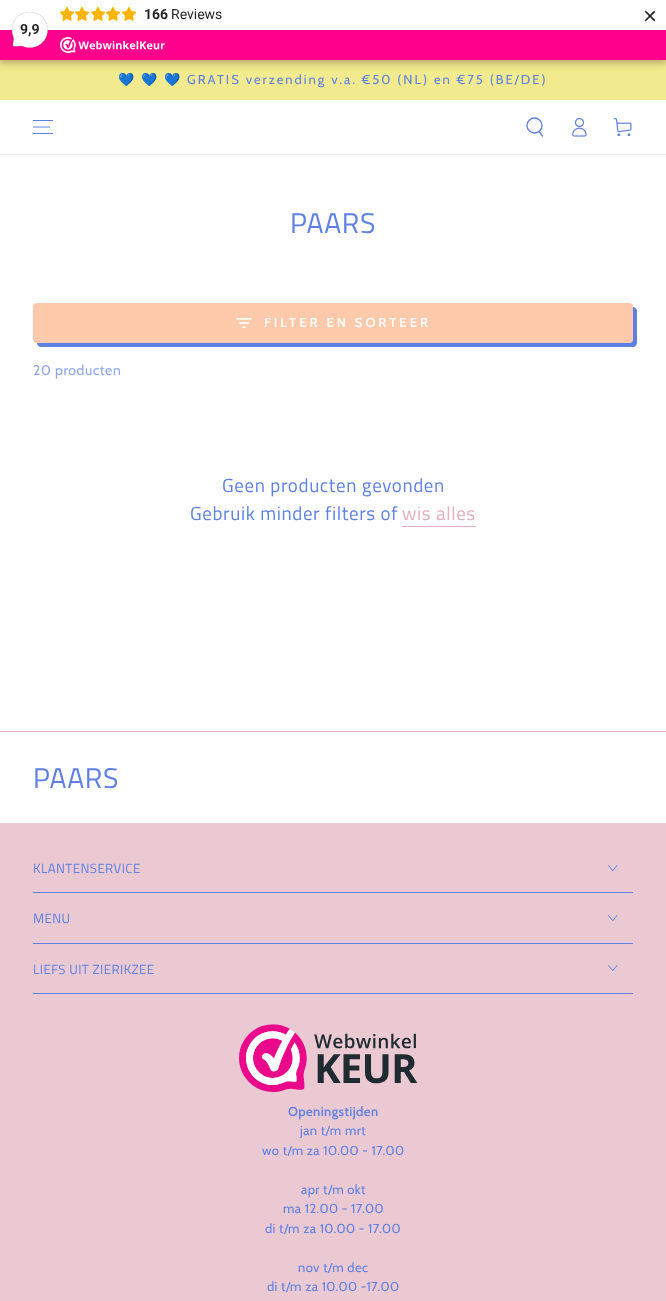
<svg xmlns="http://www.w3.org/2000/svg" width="666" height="1301">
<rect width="100%" height="100%" fill="#fff"/>
<rect y="60" width="666" height="40" fill="#f2ea8f"/>
<rect x="-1" y="-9" width="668" height="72" fill="#00000026" filter="blur(3px)"/>
<rect y="2" width="666" height="60" fill="#00000026" filter="blur(5px)"/>
<rect width="666" height="30" fill="#fff"/>
<image x="60" y="7" width="14" height="14" href="media/1.png"/>
<image x="75" y="7" width="14" height="14" href="media/1.png"/>
<image x="91" y="7" width="14" height="14" href="media/1.png"/>
<image x="106" y="7" width="14" height="14" href="media/1.png"/>
<image x="122" y="7" width="14" height="14" href="media/1.png"/>
<text x="144" y="19" style="font-family:Roboto;font-size:14px;font-weight:bold;fill:#272626">166</text>
<text x="171" y="19" style="font-family:Roboto;font-size:14px;fill:#272626">Reviews</text>
<text x="643" y="24" style="font-family:Liberation Sans;font-size:24px;fill:#272626">×</text>
<rect y="30" width="666" height="30" fill="#fe008c"/>
<image x="12" y="12" width="36" height="36" href="media/2.png"/>
<text x="20" y="34" style="font-family:Roboto;font-size:14px;font-weight:bold;fill:#272626">9,9</text>
<image x="60" y="37" width="105" height="16" href="media/3.png"/>
<text x="118" y="84" style="font-family:Noto Color Emoji;font-size:13px;letter-spacing:2px;fill:#5e80e3">💙</text>
<text x="141" y="84" style="font-family:Noto Color Emoji;font-size:13px;letter-spacing:2px;fill:#5e80e3">💙</text>
<text x="164" y="84" style="font-family:Noto Color Emoji;font-size:13px;letter-spacing:2px;fill:#5e80e3">💙</text>
<text x="187" y="84" style="font-family:Cabin;font-size:13px;letter-spacing:2px;fill:#5e80e3">GRATIS verzending v.a. €50 (NL) en €75 (BE/DE)</text>
<rect y="154" width="666" height="1" fill="#f9eff2"/>
<path d="M33 133.5h20m-20-6.5h17m-17-6.5h20" fill="none" stroke="#5e80e3" stroke-width="1.2"/>
<circle cx="534.5" cy="125.5" r="7.5" fill="none" stroke="#5e80e3" stroke-width="1.3"/>
<path d="M539 131.5l3.5 4.5" fill="none" stroke="#5e80e3" stroke-width="1.3" stroke-linecap="round"/>
<image x="572" y="117" width="15" height="20" href="media/4.png"/>
<image x="613" y="118" width="19" height="19" href="media/5.png"/>
<text x="290" y="233" style="font-family:Titillium Web;font-size:28.5px;letter-spacing:0.6px;fill:#5e80e3">PAARS</text>
<path d="M37 343c0 2 2 4 4 4h592c2 0 4-2 4-4v-32c0-2-2-4-4-4v32c0 2-2 4-4 4z" fill="#5e80e3"/>
<rect x="34" y="304" width="598" height="38" rx="3" fill="#ffcaac" stroke="#ffcaac" stroke-width="2"/>
<image x="236" y="318" width="16" height="10" href="media/6.png"/>
<text x="264" y="327" style="font-family:Cabin;font-size:13px;font-weight:600;letter-spacing:3px;fill:#fff">FILTER EN SORTEER</text>
<text x="33" y="375" style="font-family:Cabin;font-size:14px;letter-spacing:0.6px;fill:#8ea6eb">20 producten</text>
<text x="222" y="492" style="font-family:Titillium Web;font-size:19px;letter-spacing:0.6px;fill:#5e80e3">Geen producten gevonden</text>
<text x="190" y="520" style="font-family:Titillium Web;font-size:19px;letter-spacing:0.6px;fill:#5e80e3">Gebruik minder filters of</text>
<text x="402" y="520" style="font-family:Titillium Web;font-size:19px;letter-spacing:0.6px;fill:#e2afbd">wis alles</text>
<rect x="402" y="526" width="74" height="1" fill="#e2afbd"/>
<rect y="731" width="666" height="1" fill="#e2afbd"/>
<text x="33" y="788" style="font-family:Titillium Web;font-size:28.5px;letter-spacing:0.6px;fill:#5e80e3">PAARS</text>
<rect y="823" width="666" height="478" fill="#eac9d2"/>
<rect x="33" y="892" width="600" height="1" fill="#5e80e3"/>
<text x="33" y="873" style="font-family:Titillium Web;font-size:13.25px;letter-spacing:0.4px;fill:#5e80e3">KLANTENSERVICE</text>
<image x="608" y="865" width="10" height="6" href="media/7.png"/>
<rect x="33" y="943" width="600" height="1" fill="#5e80e3"/>
<text x="33" y="923" style="font-family:Titillium Web;font-size:13.25px;letter-spacing:0.4px;fill:#5e80e3">MENU</text>
<image x="608" y="915" width="10" height="6" href="media/7.png"/>
<rect x="33" y="993" width="600" height="1" fill="#5e80e3"/>
<text x="33" y="974" style="font-family:Titillium Web;font-size:13.25px;letter-spacing:0.4px;fill:#5e80e3">LIEFS UIT ZIERIKZEE</text>
<image x="608" y="965" width="10" height="6" href="media/7.png"/>
<image x="239" y="1024" width="179" height="68" href="media/8.png"/>
<text x="288" y="1116" style="font-family:Cabin;font-size:13px;font-weight:600;letter-spacing:0.4px;fill:#5e80e3">Openingstijden</text>
<text x="300" y="1135" style="font-family:Cabin;font-size:13px;letter-spacing:0.4px;fill:#5e80e3">jan t/m mrt</text>
<text x="262" y="1155" style="font-family:Cabin;font-size:13px;letter-spacing:0.4px;fill:#5e80e3">wo t/m za 10.00 - 17.00</text>
<text x="301" y="1194" style="font-family:Cabin;font-size:13px;letter-spacing:0.4px;fill:#5e80e3">apr t/m okt</text>
<text x="283" y="1213" style="font-family:Cabin;font-size:13px;letter-spacing:0.4px;fill:#5e80e3">ma 12.00 - 17.00</text>
<text x="265" y="1233" style="font-family:Cabin;font-size:13px;letter-spacing:0.4px;fill:#5e80e3">di t/m za 10.00 - 17.00</text>
<text x="298" y="1272" style="font-family:Cabin;font-size:13px;letter-spacing:0.4px;fill:#5e80e3">nov t/m dec</text>
<text x="267" y="1291" style="font-family:Cabin;font-size:13px;letter-spacing:0.4px;fill:#5e80e3">di t/m za 10.00 -17.00</text>
</svg>
